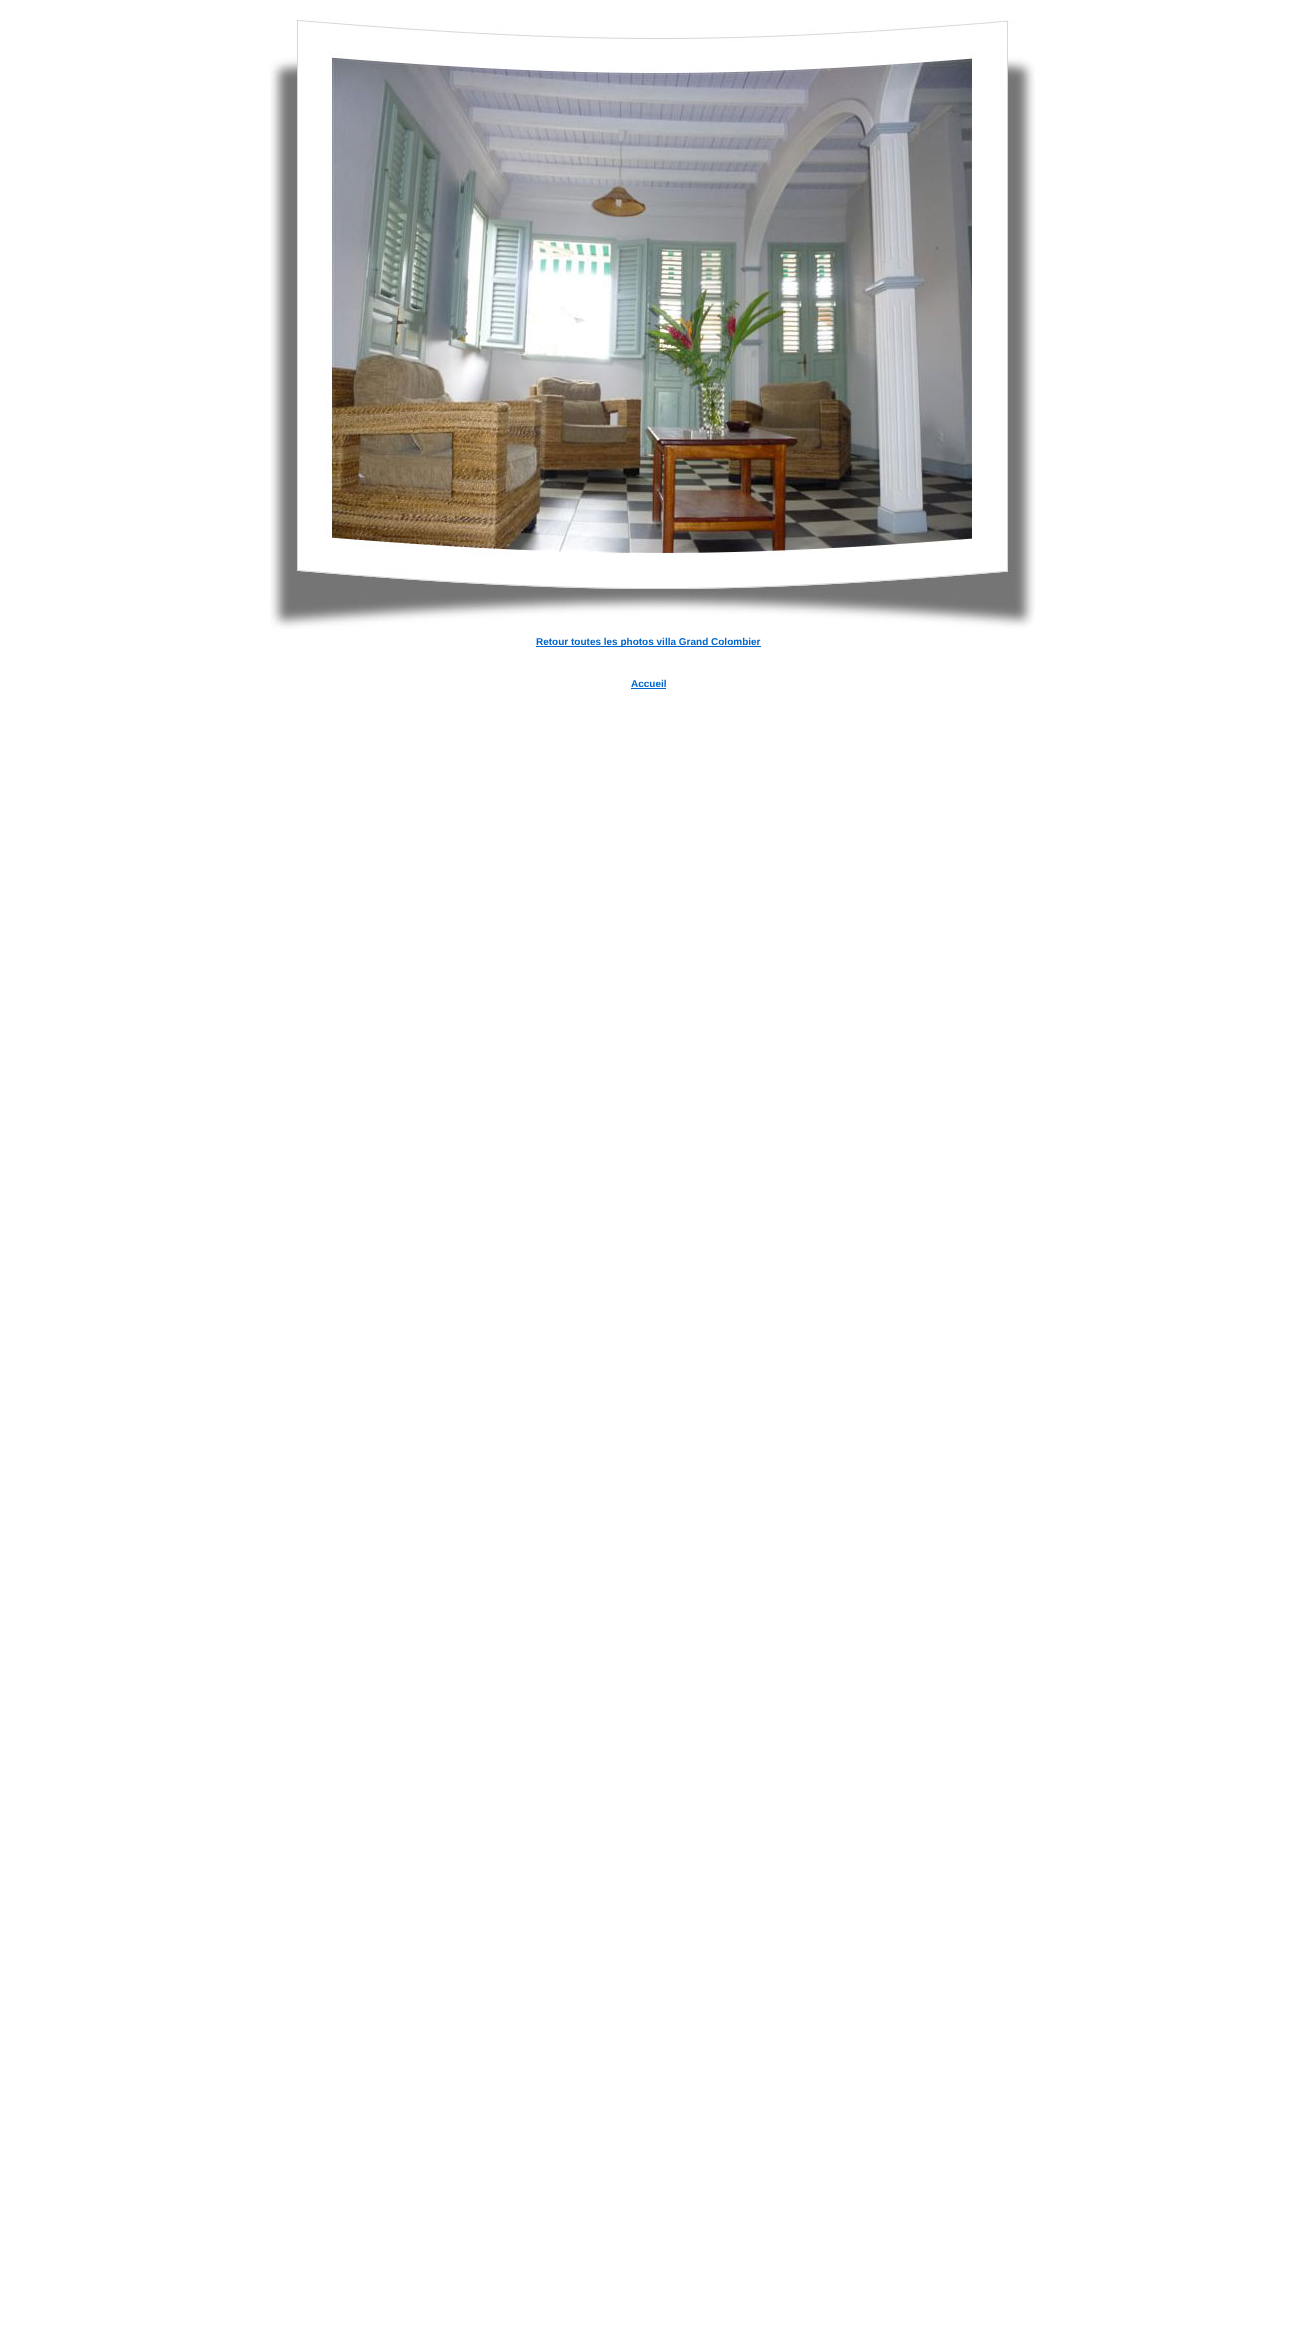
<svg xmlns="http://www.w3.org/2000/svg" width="1306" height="2345">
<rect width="100%" height="100%" fill="#fff"/>
<image x="270" y="19" width="765" height="610" href="media/1.png"/>
<rect x="536" y="646" width="225" height="1" fill="#06c"/>
<text x="536" y="645" style="font-family:Liberation Sans;font-size:10px;font-weight:bold;fill:#06c">Retour toutes les photos villa Grand Colombier</text>
<text x="631" y="687" style="font-family:Liberation Sans;font-size:10px;font-weight:bold;fill:#06c">Accueil</text>
<rect x="631" y="688" width="35" height="1" fill="#06c"/>
</svg>
